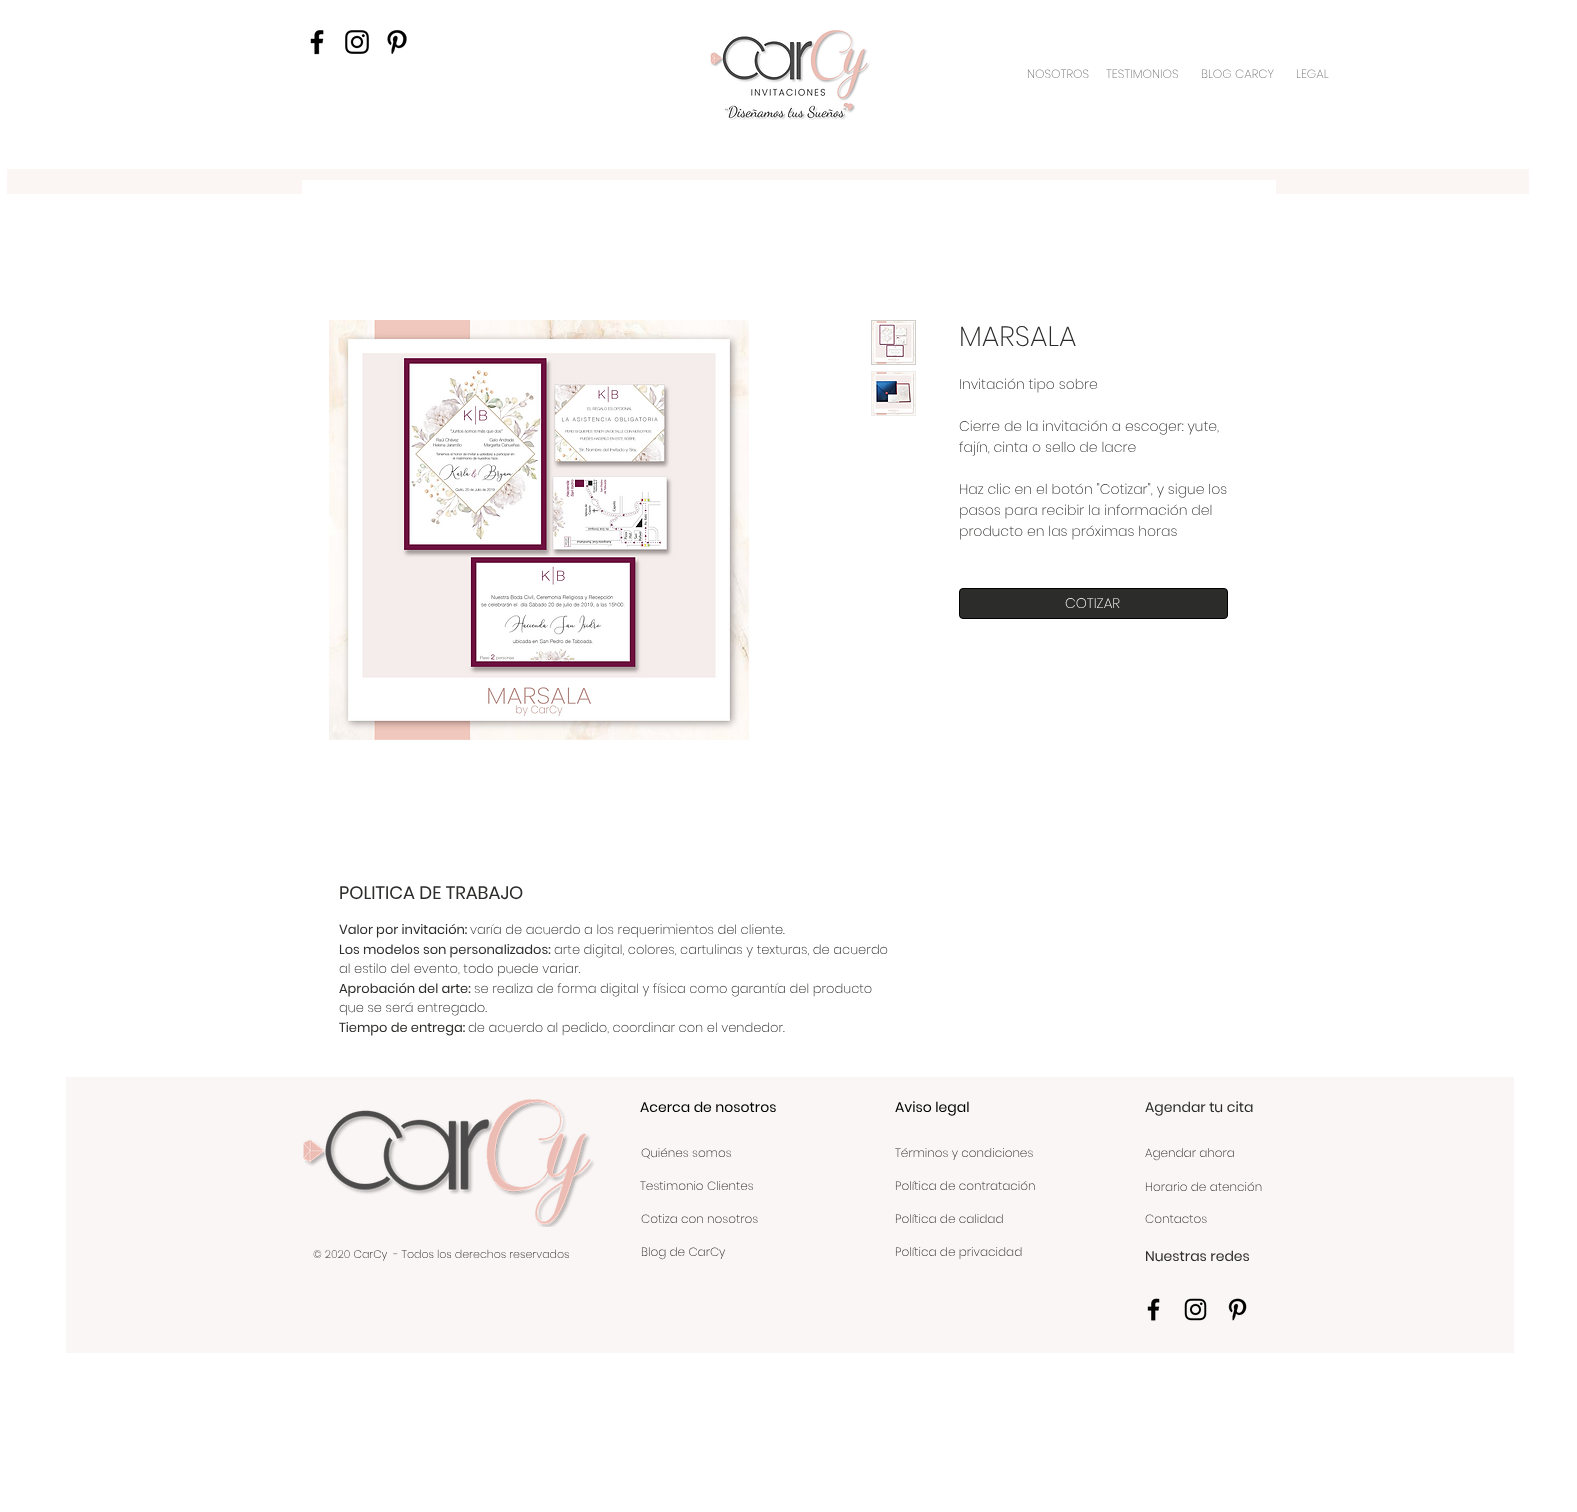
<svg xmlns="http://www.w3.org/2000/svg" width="1577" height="1512">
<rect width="100%" height="100%" fill="#fff"/>
<image x="310" y="30" width="14" height="25" href="media/1.png"/>
<image x="345" y="30" width="24" height="24" href="media/2.png"/>
<image x="387" y="29" width="20" height="25" href="media/3.png"/>
<image x="710" y="30" width="160" height="90" href="media/4.png"/>
<text x="1027" y="78" style="font-family:Poppins;font-size:12px;font-weight:200;fill:#7c7878">NOSOTROS</text>
<text x="1106" y="78" style="font-family:Poppins;font-size:12px;font-weight:200;fill:#7c7878">TESTIMONIOS</text>
<text x="1201" y="78" style="font-family:Poppins;font-size:12px;font-weight:200;fill:#7c7878">BLOG CARCY</text>
<text x="1296" y="78" style="font-family:Poppins;font-size:12px;font-weight:200;fill:#7c7878">LEGAL</text>
<rect x="7" y="169" width="1522" height="25" fill="#fbf6f3"/>
<rect x="302" y="180" width="974" height="14" fill="#fff"/>
<image x="329" y="320" width="420" height="420" href="media/5.png"/>
<rect x="871.5" y="320.5" width="44" height="44" fill="none" stroke="#cdcdc9"/>
<image x="872" y="321" width="43" height="43" href="media/6.png"/>
<rect x="871" y="371" width="45" height="45" fill="#ededec"/>
<image x="872" y="372" width="43" height="43" href="media/7.png"/>
<text x="959" y="346" style="font-family:Poppins;font-size:28px;font-weight:200;fill:#2c2c2b">MARSALA</text>
<text x="959" y="389" style="font-family:Poppins;font-size:14px;font-weight:200;fill:#2c2c2b">Invitación tipo sobre</text>
<text x="959" y="431" style="font-family:Poppins;font-size:14px;font-weight:200;fill:#2c2c2b">Cierre de la invitación a escoger: yute,</text>
<text x="959" y="452" style="font-family:Poppins;font-size:14px;font-weight:200;fill:#2c2c2b">fajín, cinta o sello de lacre</text>
<text x="959" y="494" style="font-family:Poppins;font-size:14px;font-weight:200;fill:#2c2c2b">Haz clic en el botón "Cotizar", y sigue los</text>
<text x="959" y="515" style="font-family:Poppins;font-size:14px;font-weight:200;fill:#2c2c2b">pasos para recibir la información del</text>
<text x="959" y="536" style="font-family:Poppins;font-size:14px;font-weight:200;fill:#2c2c2b">producto en las próximas horas</text>
<text x="339" y="899" style="font-family:Poppins;font-size:18px;fill:#2c2c2b">POLITICA DE TRABAJO</text>
<text x="339" y="934" style="font-family:Poppins;font-size:13px;fill:#2c2c2b">Valor por invitación:</text>
<text x="470" y="934" style="font-family:Poppins;font-size:13px;font-weight:200;fill:#2c2c2b">varía de acuerdo a los requerimientos del cliente.</text>
<text x="339" y="954" style="font-family:Poppins;font-size:13px;fill:#2c2c2b">Los modelos son personalizados:</text>
<text x="554" y="954" style="font-family:Poppins;font-size:13px;font-weight:200;fill:#2c2c2b">arte digital, colores, cartulinas y texturas, de acuerdo</text>
<text x="339" y="973" style="font-family:Poppins;font-size:13px;font-weight:200;fill:#2c2c2b">al estilo del evento, todo puede variar.</text>
<text x="339" y="993" style="font-family:Poppins;font-size:13px;fill:#2c2c2b">Aprobación del arte:</text>
<text x="474" y="993" style="font-family:Poppins;font-size:13px;font-weight:200;fill:#2c2c2b">se realiza de forma digital y física como garantía del producto</text>
<text x="339" y="1012" style="font-family:Poppins;font-size:13px;font-weight:200;fill:#2c2c2b">que se será entregado.</text>
<text x="339" y="1032" style="font-family:Poppins;font-size:13px;fill:#2c2c2b">Tiempo de entrega:</text>
<text x="468" y="1032" style="font-family:Poppins;font-size:13px;font-weight:200;fill:#2c2c2b">de acuerdo al pedido, coordinar con el vendedor.</text>
<rect x="959.5" y="588.5" width="268" height="30" rx="3.5" fill="#2c2c2b" stroke="#000"/>
<text x="1065" y="608" style="font-family:Poppins;font-size:14px;font-weight:200;fill:#fff">COTIZAR</text>
<rect x="66" y="1077" width="1448" height="276" fill="#faf6f5"/>
<image x="303" y="1099" width="292" height="128" href="media/8.png"/>
<text x="640" y="1112" style="font-family:Poppins;font-size:14px;fill:#000">Acerca de nosotros</text>
<text x="895" y="1112" style="font-family:Poppins;font-size:14px;fill:#000">Aviso legal</text>
<text x="1145" y="1112" style="font-family:Poppins;font-size:14px;fill:#2c2c2b">Agendar tu cita</text>
<text x="641" y="1157" style="font-family:Poppins;font-size:12px;font-weight:200;fill:#2c2c2b">Quiénes somos</text>
<text x="895" y="1157" style="font-family:Poppins;font-size:12px;font-weight:200;fill:#2c2c2b">Términos y condiciones</text>
<text x="1145" y="1157" style="font-family:Poppins;font-size:12px;font-weight:200;fill:#2c2c2b">Agendar ahora</text>
<text x="640" y="1190" style="font-family:Poppins;font-size:12px;font-weight:200;fill:#2c2c2b">Testimonio Clientes</text>
<text x="895" y="1190" style="font-family:Poppins;font-size:12px;font-weight:200;fill:#2c2c2b">Política de contratación</text>
<text x="1145" y="1191" style="font-family:Poppins;font-size:12px;font-weight:200;fill:#2c2c2b">Horario de atención</text>
<text x="641" y="1223" style="font-family:Poppins;font-size:12px;font-weight:200;fill:#2c2c2b">Cotiza con nosotros</text>
<text x="895" y="1223" style="font-family:Poppins;font-size:12px;font-weight:200;fill:#2c2c2b">Política de calidad</text>
<text x="1145" y="1223" style="font-family:Poppins;font-size:12px;font-weight:200;fill:#2c2c2b">Contactos</text>
<text x="313" y="1258" style="font-family:Poppins;font-size:11px;font-weight:200;fill:#2c2c2b" xml:space="preserve">© 2020 CarCy  - Todos los derechos reservados</text>
<text x="641" y="1256" style="font-family:Poppins;font-size:12px;font-weight:200;fill:#2c2c2b">Blog de CarCy</text>
<text x="895" y="1256" style="font-family:Poppins;font-size:12px;font-weight:200;fill:#2c2c2b">Política de privacidad</text>
<text x="1145" y="1261" style="font-family:Poppins;font-size:14px;fill:#2c2c2b">Nuestras redes</text>
<image x="1147" y="1298" width="13" height="23" href="media/9.png"/>
<image x="1184" y="1298" width="23" height="23" href="media/10.png"/>
<image x="1228" y="1298" width="19" height="23" href="media/11.png"/>
</svg>
